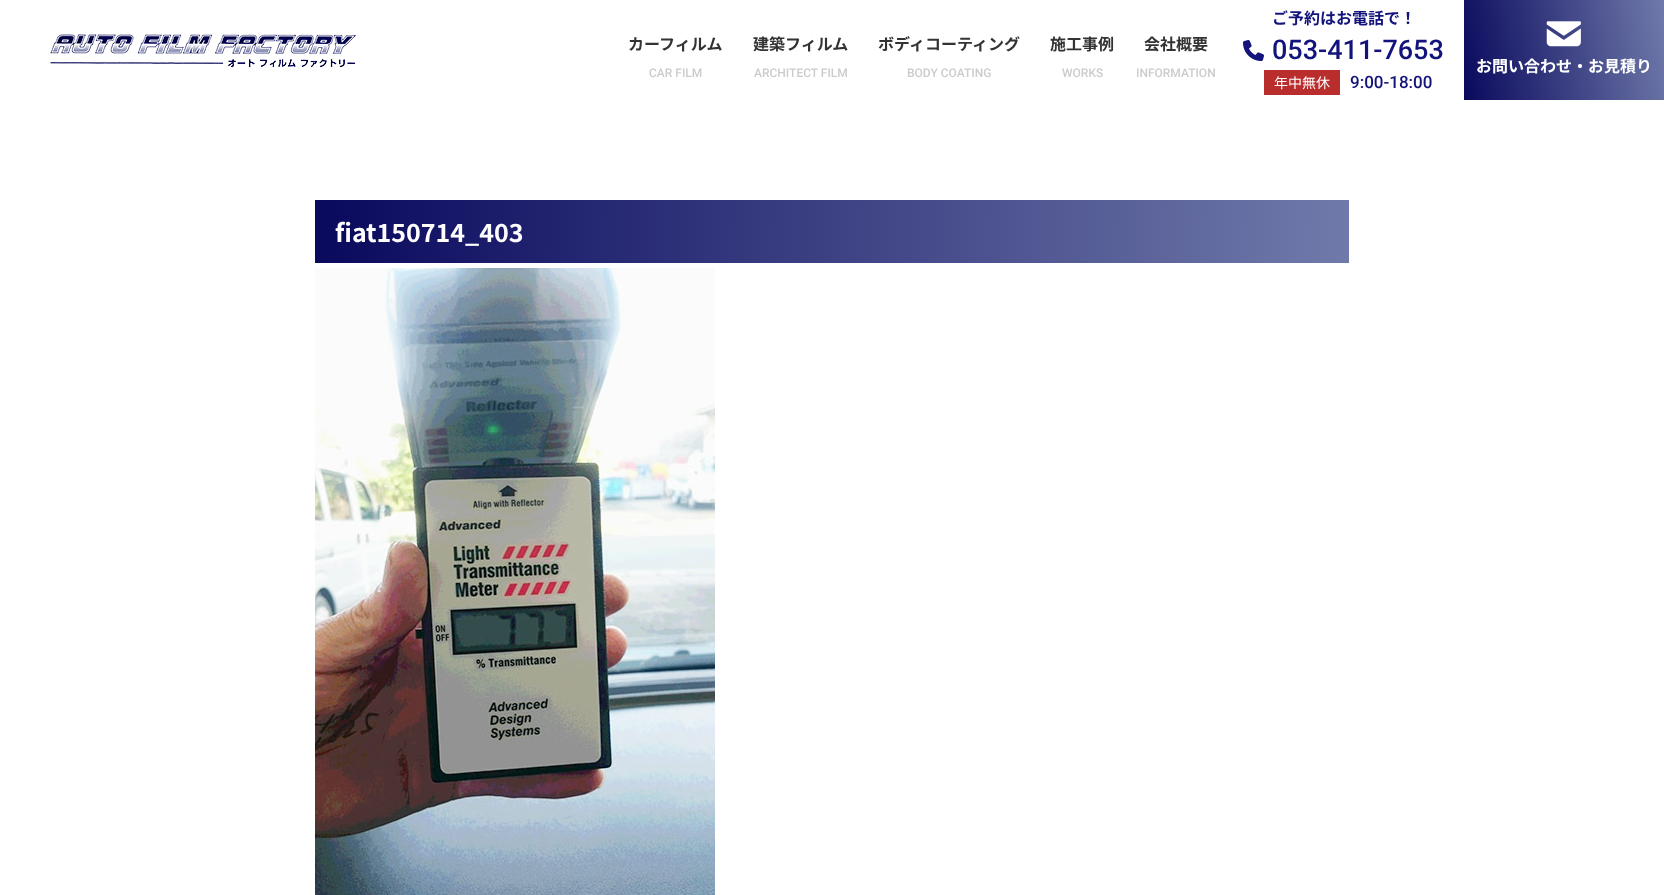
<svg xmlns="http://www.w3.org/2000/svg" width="1664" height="895">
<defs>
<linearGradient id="g1" gradientUnits="userSpaceOnUse" x1="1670" y1="31" x2="1458" y2="69"><stop offset="0" stop-color="#707aaa"/><stop offset="1" stop-color="#09095d"/></linearGradient>
<linearGradient id="g2" gradientUnits="userSpaceOnUse" x1="315" y1="222" x2="1349" y2="241"><stop offset="0" stop-color="#09095d"/><stop offset="1" stop-color="#707aaa"/></linearGradient>
</defs>
<rect width="100%" height="100%" fill="#fff"/>
<image x="50" y="34" width="306" height="34" href="media/1.png"/>
<text x="628" y="50" style="font-family:Noto Sans JP;font-size:16px;font-weight:bold;fill:#333">カーフィルム</text>
<text x="649" y="77" style="font-family:Roboto;font-size:12px;font-weight:500;fill:#ccc">CAR FILM</text>
<text x="753" y="50" style="font-family:Noto Sans JP;font-size:16px;font-weight:bold;fill:#333">建築フィルム</text>
<text x="754" y="77" style="font-family:Roboto;font-size:12px;font-weight:500;fill:#ccc">ARCHITECT FILM</text>
<text x="878" y="50" style="font-family:Noto Sans JP;font-size:16px;font-weight:bold;fill:#333">ボディコーティング</text>
<text x="907" y="77" style="font-family:Roboto;font-size:12px;font-weight:500;fill:#ccc">BODY COATING</text>
<text x="1050" y="50" style="font-family:Noto Sans JP;font-size:16px;font-weight:bold;fill:#333">施工事例</text>
<text x="1062" y="77" style="font-family:Roboto;font-size:12px;font-weight:500;fill:#ccc">WORKS</text>
<text x="1144" y="50" style="font-family:Noto Sans JP;font-size:16px;font-weight:bold;fill:#333">会社概要</text>
<text x="1136" y="77" style="font-family:Roboto;font-size:12px;font-weight:500;fill:#ccc">INFORMATION</text>
<text x="1272" y="24" style="font-family:Noto Sans JP;font-size:16px;font-weight:bold;fill:#13137c">ご予約はお電話で！</text>
<image x="1243" y="40" width="21" height="21" href="media/2.png"/>
<text x="1272" y="59" style="font-family:Roboto;font-size:27px;font-weight:500;fill:#13137c">053-411-7653</text>
<rect x="1264" y="70" width="76" height="25" fill="#ba2d2d"/>
<text x="1274" y="88" style="font-family:Noto Sans JP;font-size:14px;fill:#fff">年中無休</text>
<text x="1350" y="88" style="font-family:Roboto;font-size:17px;font-weight:500;fill:#13137c">9:00-18:00</text>
<rect x="1464" width="200" height="100" fill="url(#g1)"/>
<image x="1546" y="21" width="35" height="26" href="media/3.png"/>
<text x="1476" y="72" style="font-family:Noto Sans JP;font-size:16px;font-weight:bold;fill:#fff">お問い合わせ・お見積り</text>
<rect x="315" y="200" width="1034" height="63" fill="url(#g2)"/>
<text x="335" y="242" style="font-family:Noto Sans JP;font-size:25px;font-weight:bold;fill:#fff">fiat150714_403</text>
<image x="315" y="268" width="400" height="627" href="media/4.png"/>
</svg>
